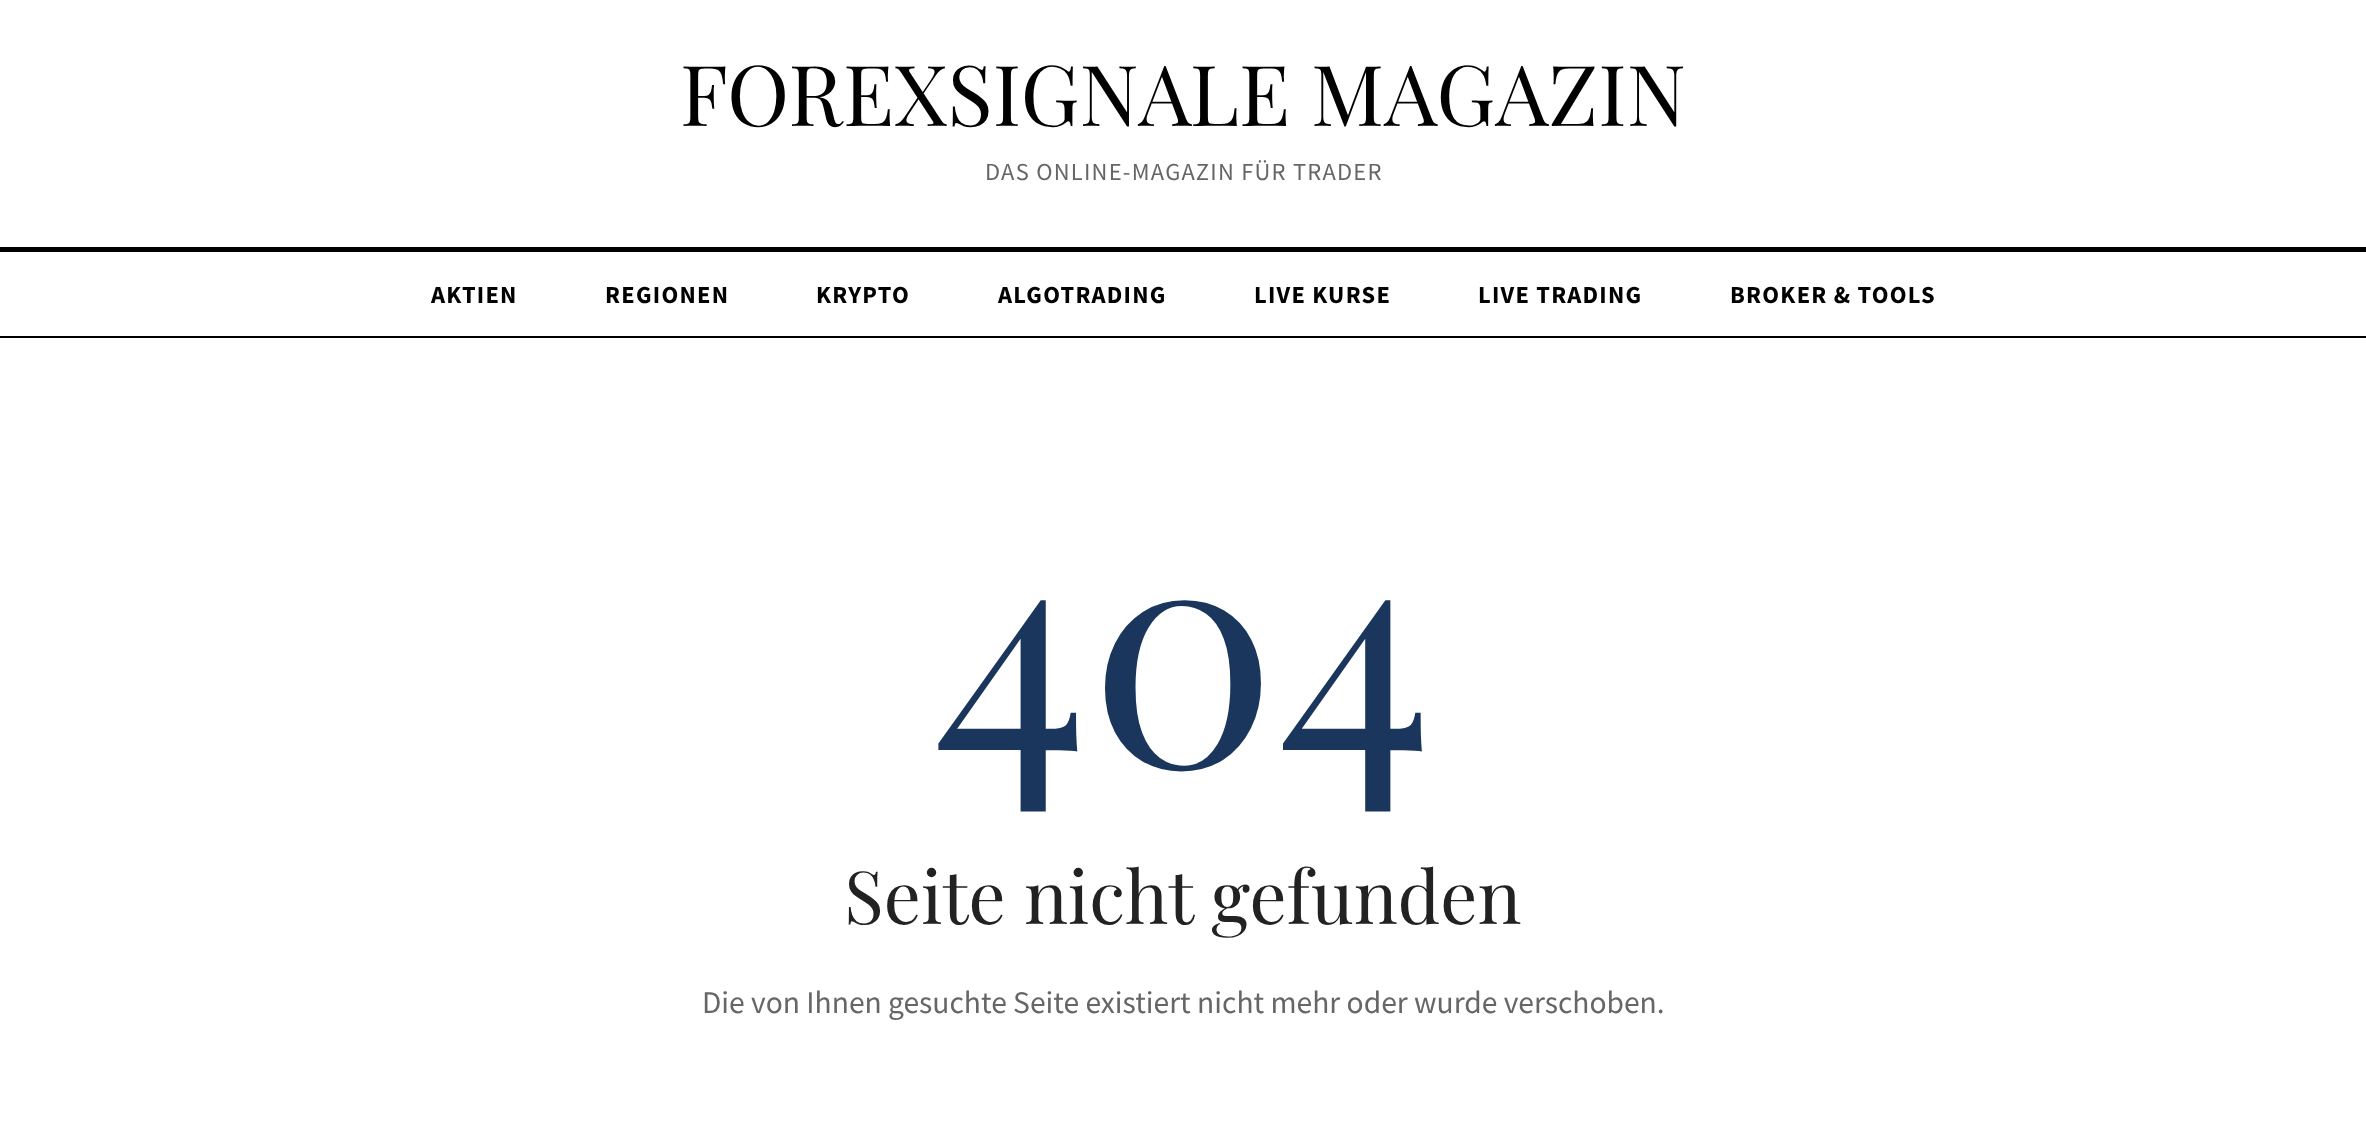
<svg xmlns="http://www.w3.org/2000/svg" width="2366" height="1135">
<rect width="100%" height="100%" fill="#fff"/>
<rect y="247" width="2366" height="5" fill="#000"/>
<text x="680" y="126" style="font-family:Playfair Display;font-size:84px;fill:#000">FOREXSIGNALE MAGAZIN</text>
<text x="985" y="180" style="font-family:Source Sans Pro;font-size:24.5px;letter-spacing:1.25px;fill:#666">DAS ONLINE-MAGAZIN FÜR TRADER</text>
<rect y="336" width="2366" height="2" fill="#000"/>
<text x="431" y="303" style="font-family:Source Sans Pro;font-size:24.5px;font-weight:bold;letter-spacing:1.25px;fill:#000">AKTIEN</text>
<text x="605" y="303" style="font-family:Source Sans Pro;font-size:24.5px;font-weight:bold;letter-spacing:1.25px;fill:#000">REGIONEN</text>
<text x="816" y="303" style="font-family:Source Sans Pro;font-size:24.5px;font-weight:bold;letter-spacing:1.25px;fill:#000">KRYPTO</text>
<text x="998" y="303" style="font-family:Source Sans Pro;font-size:24.5px;font-weight:bold;letter-spacing:1.25px;fill:#000">ALGOTRADING</text>
<text x="1254" y="303" style="font-family:Source Sans Pro;font-size:24.5px;font-weight:bold;letter-spacing:1.25px;fill:#000">LIVE KURSE</text>
<text x="1478" y="303" style="font-family:Source Sans Pro;font-size:24.5px;font-weight:bold;letter-spacing:1.25px;fill:#000">LIVE TRADING</text>
<text x="1730" y="303" style="font-family:Source Sans Pro;font-size:24.5px;font-weight:bold;letter-spacing:1.25px;fill:#000">BROKER &amp; TOOLS</text>
<text x="933" y="767" style="font-family:'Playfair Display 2';font-size:315px;fill:#1a365d">404</text>
<text x="844" y="924" style="font-family:'Playfair Display 2';font-size:73.5px;fill:#222">Seite nicht gefunden</text>
<text x="702" y="1013" style="font-family:Source Sans Pro;font-size:31.5px;fill:#666">Die von Ihnen gesuchte Seite existiert nicht mehr oder wurde verschoben.</text>
</svg>
